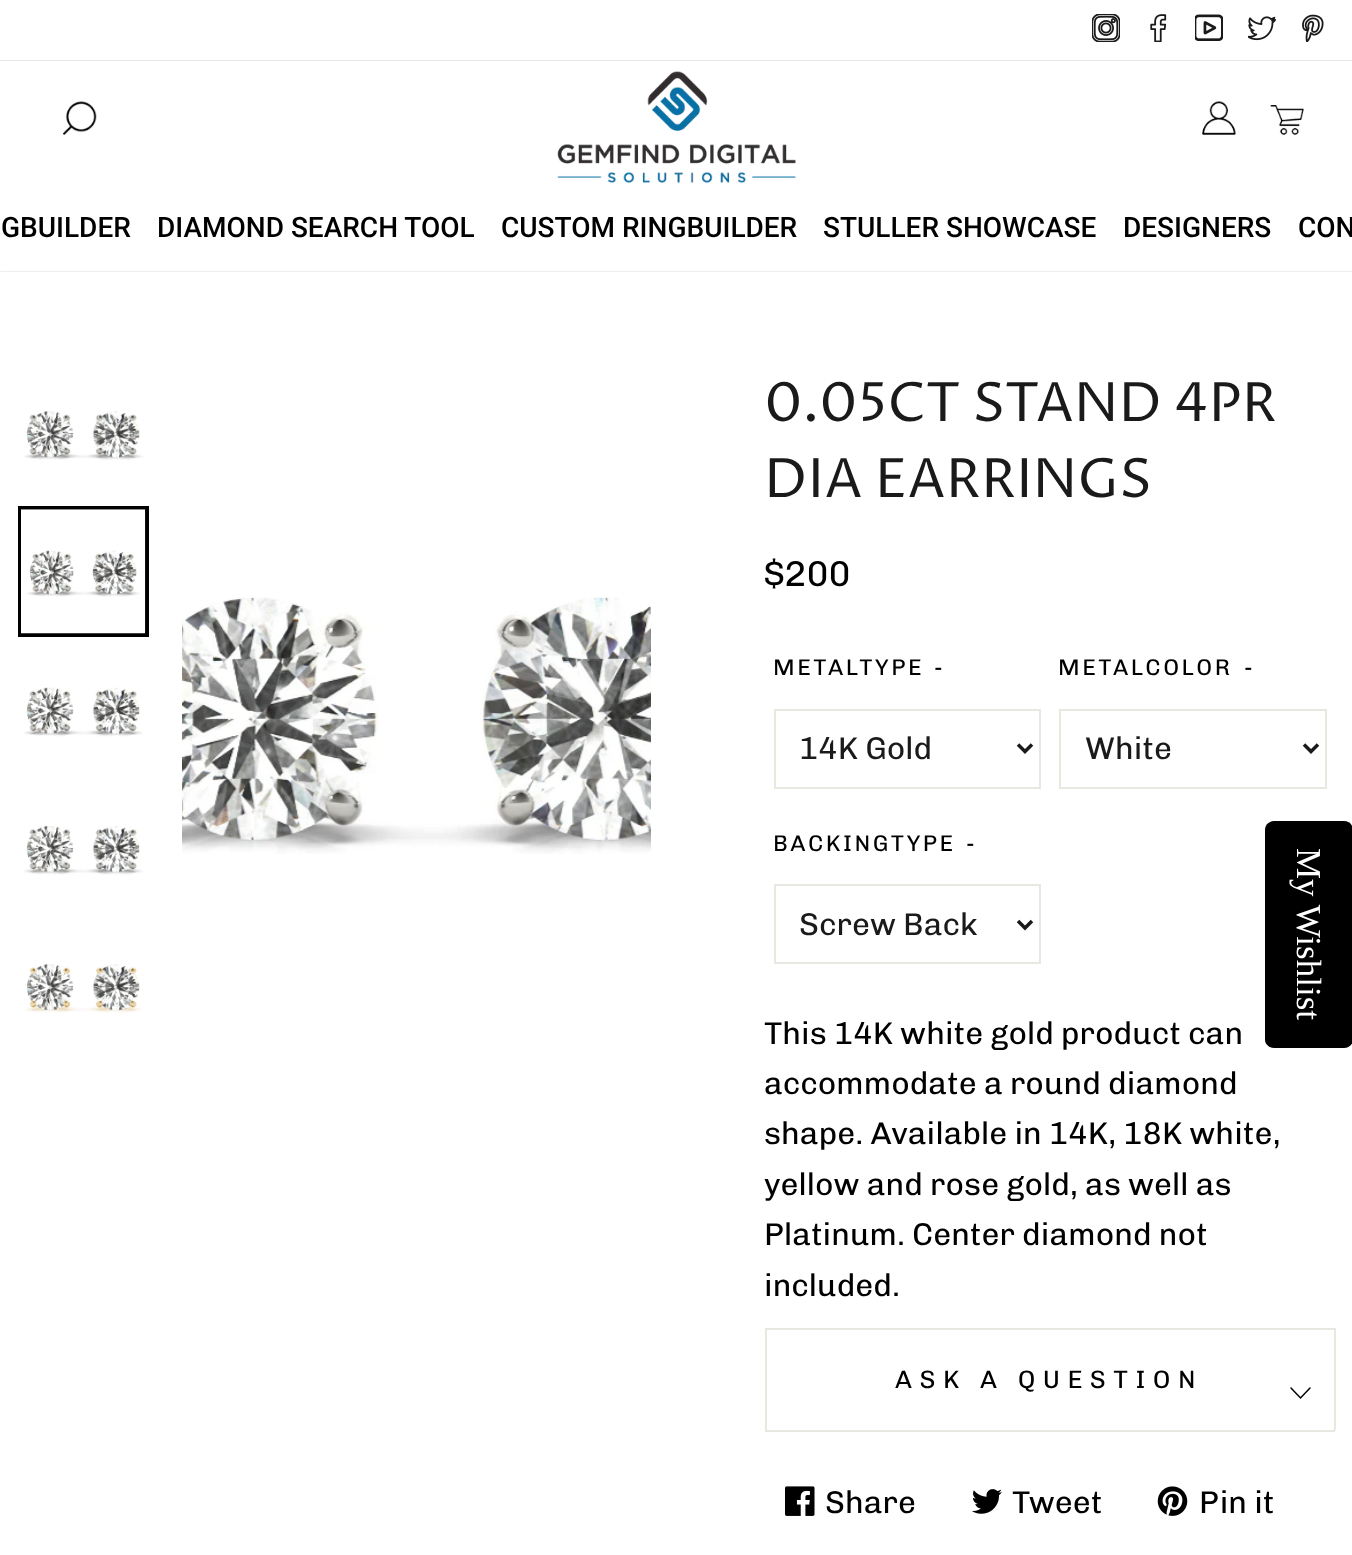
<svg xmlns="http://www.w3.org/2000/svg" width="1352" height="1555">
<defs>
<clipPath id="clip1"><rect x="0" y="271" width="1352" height="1"/></clipPath>
</defs>
<rect width="100%" height="100%" fill="#fff"/>
<g clip-path="url(#clip1)">
<rect width="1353" height="271" fill="#00000033" filter="blur(1px)"/>
</g>
<rect y="60" width="1352" height="1" fill="#e6e6e6"/>
<image x="1092" y="14" width="28" height="28" href="media/1.png"/>
<image x="1150" y="14" width="17" height="28" href="media/2.png"/>
<image x="1195" y="14" width="28" height="27" href="media/3.png"/>
<image x="1248" y="16" width="28" height="25" href="media/4.png"/>
<image x="1302" y="14" width="22" height="28" href="media/5.png"/>
<image x="63" y="101" width="34" height="34" href="media/6.png"/>
<image x="557" y="71" width="239" height="112" href="media/7.png"/>
<image x="1202" y="101" width="34" height="34" href="media/8.png"/>
<image x="1270" y="105" width="34" height="30" href="media/9.png"/>
<text x="1" y="237" style="font-family:Roboto;font-size:28px;font-weight:500;fill:#000">GBUILDER</text>
<text x="157" y="237" style="font-family:Roboto;font-size:28px;font-weight:500;fill:#000">DIAMOND SEARCH TOOL</text>
<text x="501" y="237" style="font-family:Roboto;font-size:28px;font-weight:500;fill:#000">CUSTOM RINGBUILDER</text>
<text x="823" y="237" style="font-family:Roboto;font-size:28px;font-weight:500;fill:#000">STULLER SHOWCASE</text>
<text x="1123" y="237" style="font-family:Roboto;font-size:28px;font-weight:500;fill:#000">DESIGNERS</text>
<text x="1298" y="237" style="font-family:Roboto;font-size:28px;font-weight:500;fill:#000">CON</text>
<image x="24" y="411" width="120" height="49" href="media/10.png"/>
<rect x="20" y="508" width="127" height="127" fill="none" stroke="#000" stroke-width="4"/>
<image x="21" y="509" width="125" height="125" href="media/11.png"/>
<image x="24" y="687" width="119" height="50" href="media/12.png"/>
<image x="24" y="826" width="119" height="49" href="media/13.png"/>
<image x="24" y="964" width="118" height="49" href="media/14.png"/>
<image x="182" y="597" width="469" height="257" href="media/15.png"/>
<text x="764" y="421" style="font-family:Proza Libre;font-size:54.25px;fill:#1a1a1a">0.05CT STAND 4PR</text>
<text x="764" y="497" style="font-family:Proza Libre;font-size:54.25px;fill:#1a1a1a">DIA EARRINGS</text>
<text x="764" y="586" style="font-family:Chivo;font-size:36px;fill:#000">$200</text>
<text x="773" y="675" style="font-family:Chivo;font-size:22.75px;letter-spacing:2.6px;fill:#000">METALTYPE</text>
<text x="934" y="675" style="font-family:Chivo;font-size:22.75px;letter-spacing:2.6px;fill:#000">-</text>
<rect x="775" y="710" width="265" height="78" fill="none" stroke="#e8e8e1" stroke-width="2"/>
<path d="M1018 744.5l7 7l7-7" fill="none" stroke="#1a1a1a" stroke-width="3.5"/>
<text x="799" y="759" style="font-family:Chivo;font-size:31.5px;fill:#1a1a1a">14K Gold</text>
<text x="1058" y="675" style="font-family:Chivo;font-size:22.75px;letter-spacing:2.6px;fill:#000">METALCOLOR</text>
<text x="1244" y="675" style="font-family:Chivo;font-size:22.75px;letter-spacing:2.6px;fill:#000">-</text>
<rect x="1060" y="710" width="266" height="78" fill="none" stroke="#e8e8e1" stroke-width="2"/>
<path d="M1304 744.5l7 7l7-7" fill="none" stroke="#1a1a1a" stroke-width="3.5"/>
<text x="1085" y="759" style="font-family:Chivo;font-size:31.5px;fill:#1a1a1a">White</text>
<text x="773" y="851" style="font-family:Chivo;font-size:22.75px;letter-spacing:2.6px;fill:#000">BACKINGTYPE</text>
<text x="966" y="851" style="font-family:Chivo;font-size:22.75px;letter-spacing:2.6px;fill:#000">-</text>
<rect x="775" y="885" width="265" height="78" fill="none" stroke="#e8e8e1" stroke-width="2"/>
<path d="M1018 921l7 7l7-7" fill="none" stroke="#1a1a1a" stroke-width="3.5"/>
<text x="799" y="935" style="font-family:Chivo;font-size:31.5px;fill:#1a1a1a">Screw Back</text>
<text x="764" y="1044" style="font-family:Chivo;font-size:31.5px;fill:#000">This 14K white gold product can</text>
<text x="764" y="1094" style="font-family:Chivo;font-size:31.5px;fill:#000">accommodate a round diamond</text>
<text x="764" y="1144" style="font-family:Chivo;font-size:31.5px;fill:#000">shape. Available in 14K, 18K white,</text>
<text x="764" y="1195" style="font-family:Chivo;font-size:31.5px;fill:#000">yellow and rose gold, as well as</text>
<text x="764" y="1245" style="font-family:Chivo;font-size:31.5px;fill:#000">Platinum. Center diamond not</text>
<text x="764" y="1296" style="font-family:Chivo;font-size:31.5px;fill:#000">included.</text>
<rect x="765" y="1430" width="570" height="2" fill="#e8e8e1"/>
<rect x="765" y="1328" width="570" height="2" fill="#e8e8e1"/>
<rect x="1334" y="1328" width="2" height="102" fill="#e8e8e1"/>
<rect x="765" y="1328" width="2" height="102" fill="#e8e8e1"/>
<text x="895" y="1388" style="font-family:Chivo;font-size:25.25px;letter-spacing:7.5px;fill:#000">ASK A QUESTION</text>
<path d="M1291 1388l9.5 10l9.5-10" fill="none" stroke="#000" stroke-width="1.5" stroke-linecap="round"/>
<image x="785" y="1486" width="30" height="30" href="media/16.png"/>
<text x="825" y="1513" style="font-family:Chivo;font-size:31.5px;fill:#000">Share</text>
<image x="972" y="1489" width="30" height="25" href="media/17.png"/>
<text x="1012" y="1513" style="font-family:Chivo;font-size:31.5px;fill:#000">Tweet</text>
<image x="1157" y="1486" width="31" height="30" href="media/18.png"/>
<text x="1199" y="1513" style="font-family:Chivo;font-size:31.5px;fill:#000">Pin it</text>
<path d="M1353 830v210c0 4-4 8-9 8h-70c-5 0-9-4-9-8v-210c0-5 4-9 9-9h70c5 0 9 4 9 9z" fill="#000"/>
<text x="1297" y="848" transform="rotate(90 1297 848)" style="font-family:Liberation Serif;font-size:35px;fill:#fff">My Wishlist</text>
</svg>
